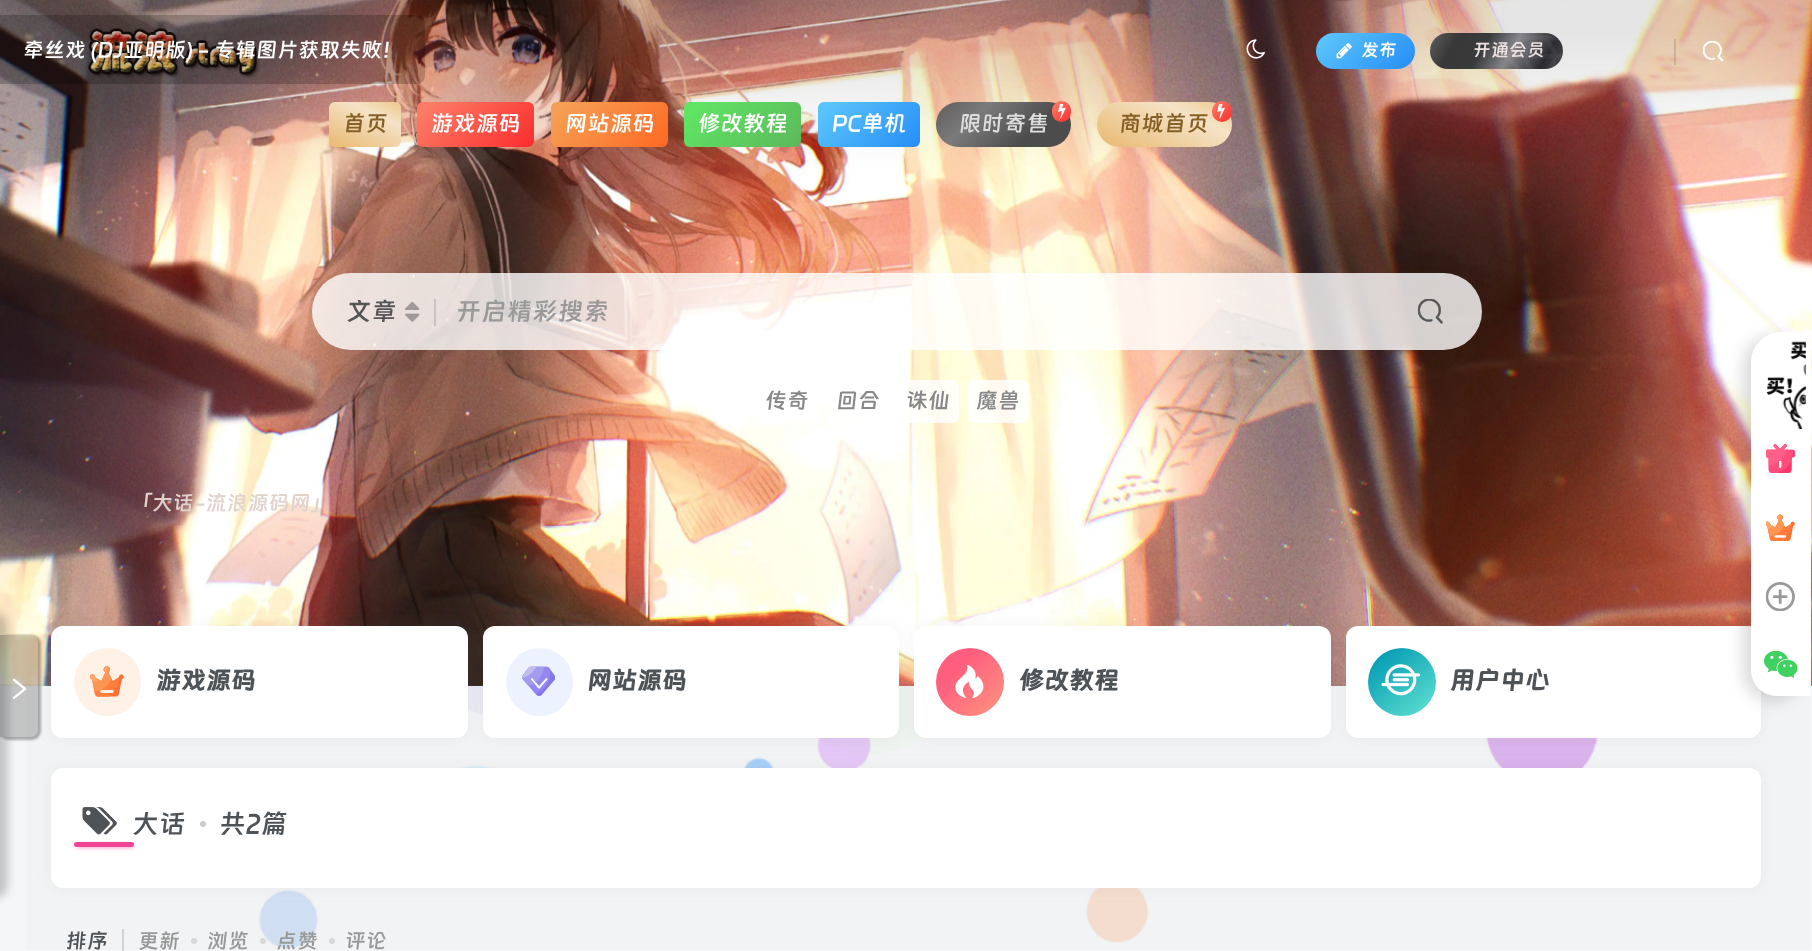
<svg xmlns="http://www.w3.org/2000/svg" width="1812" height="951">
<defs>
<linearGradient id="g1" gradientUnits="userSpaceOnUse" x1="1331" y1="17" x2="1399" y2="85"><stop offset="0.1" stop-color="#59c3fb"/><stop offset="1" stop-color="#268df7"/></linearGradient>
<linearGradient id="g2" gradientUnits="userSpaceOnUse" x1="1554" y1="84" x2="1438" y2="18"><stop offset="0" stop-color="#4c4d51"/><stop offset="0.15" stop-color="#2a2a31"/><stop offset="0.4" stop-color="#85858a"/><stop offset="0.6" stop-color="#393a3c"/><stop offset="0.8" stop-color="#393838"/><stop offset="1" stop-color="#5e5f62"/></linearGradient>
<linearGradient id="g3" gradientUnits="userSpaceOnUse" x1="349" y1="157" x2="380" y2="92"><stop offset="0.1" stop-color="#eabe7b"/><stop offset="0.7" stop-color="#f5e3c7"/><stop offset="1" stop-color="#edc788"/></linearGradient>
<linearGradient id="g4" gradientUnits="userSpaceOnUse" x1="435" y1="84" x2="516" y2="165"><stop offset="0.1" stop-color="#fd7a64"/><stop offset="1" stop-color="#fb2d2d"/></linearGradient>
<linearGradient id="g5" gradientUnits="userSpaceOnUse" x1="569" y1="84" x2="650" y2="165"><stop offset="0.1" stop-color="#f59f54"/><stop offset="1" stop-color="#ff6922"/></linearGradient>
<linearGradient id="g6" gradientUnits="userSpaceOnUse" x1="702" y1="84" x2="783" y2="165"><stop offset="0.1" stop-color="#60e464"/><stop offset="1" stop-color="#5cb85b"/></linearGradient>
<linearGradient id="g7" gradientUnits="userSpaceOnUse" x1="832" y1="88" x2="905" y2="161"><stop offset="0.1" stop-color="#59c3fb"/><stop offset="1" stop-color="#268df7"/></linearGradient>
<linearGradient id="g8" gradientUnits="userSpaceOnUse" x1="1046" y1="170" x2="961" y2="79"><stop offset="0.3" stop-color="#4d4c4c"/><stop offset="0.7" stop-color="#7b7b7b"/><stop offset="1" stop-color="#5f5c5c"/></linearGradient>
<linearGradient id="g9" gradientUnits="userSpaceOnUse" x1="1051" y1="101" x2="1072" y2="121"><stop offset="0.1" stop-color="#fd7a64"/><stop offset="1" stop-color="#fb2d2d"/></linearGradient>
<linearGradient id="g10" gradientUnits="userSpaceOnUse" x1="1143" y1="169" x2="1185" y2="80"><stop offset="0.1" stop-color="#eabe7b"/><stop offset="0.7" stop-color="#f5e3c7"/><stop offset="1" stop-color="#edc788"/></linearGradient>
<linearGradient id="g11" gradientUnits="userSpaceOnUse" x1="1211" y1="101" x2="1232" y2="121"><stop offset="0.1" stop-color="#fd7a64"/><stop offset="1" stop-color="#fb2d2d"/></linearGradient>
<linearGradient id="g12" gradientUnits="userSpaceOnUse" x1="936" y1="648" x2="1004" y2="716"><stop offset="0.3" stop-color="#ff5e7f"/><stop offset="1" stop-color="#ff967e"/></linearGradient>
<linearGradient id="g13" gradientUnits="userSpaceOnUse" x1="1371" y1="645" x2="1432" y2="718"><stop offset="0.1" stop-color="#039ab3"/><stop offset="0.9" stop-color="#58dbcf"/></linearGradient>
<clipPath id="clip1"><path d="M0 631h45v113h-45zm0 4h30c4.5 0 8 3.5 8 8v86c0 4.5-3.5 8-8 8h-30z" clip-rule="evenodd"/></clipPath>
</defs>
<rect width="100%" height="100%" fill="#f5f6f7"/>
<image x="26" y="685" width="1785" height="265" href="media/23.png"/>
<image x="0" y="684" width="1812" height="2" href="media/9.png"/>
<image x="0" y="684" width="1812" height="2" href="media/10.png"/>
<image x="0" y="0" width="1812" height="686" href="media/8.png"/>
<image x="88" y="28" width="172" height="50" href="media/1.png"/>
<path d="M0 15h417c4.5 0 8 3.5 8 8v53c0 4.5-3.5 8-8 8h-417z" fill="#00000033"/>
<text x="23" y="57" style="font-family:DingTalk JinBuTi;font-size:21px;fill:#fff">牵丝戏 (DJ亚明版) - 专辑图片获取失败！</text>
<rect x="1235" y="27" width="21" height="44" fill="#3232320f"/>
<image x="1246" y="39" width="19" height="20" href="media/2.png"/>
<rect x="1316" y="33" width="99" height="36" rx="18" fill="url(#g1)"/>
<image x="1336" y="43" width="16" height="16" href="media/3.png"/>
<text x="1361" y="56" style="font-family:DingTalk JinBuTi;font-size:18px;fill:#fff">发布</text>
<rect x="1430" y="33" width="133" height="36" rx="18" fill="url(#g2)"/>
<text x="1473" y="56" style="font-family:DingTalk JinBuTi;font-size:18px;fill:#ece0e0">开通会员</text>
<image x="1505" y="36" width="58" height="33" href="media/4.png"/>
<rect x="1674" y="39" width="2" height="26" fill="#4e535833"/>
<image x="1703" y="41" width="21" height="21" href="media/5.png"/>
<rect x="329" y="102" width="72" height="45" rx="6" fill="url(#g3)"/>
<text x="343" y="131" style="font-family:DingTalk JinBuTi;font-size:22.5px;fill:#866127">首页</text>
<rect x="417" y="102" width="117" height="45" rx="6" fill="url(#g4)"/>
<text x="431" y="131" style="font-family:DingTalk JinBuTi;font-size:22.5px;fill:#fff">游戏源码</text>
<rect x="551" y="102" width="117" height="45" rx="6" fill="url(#g5)"/>
<text x="565" y="131" style="font-family:DingTalk JinBuTi;font-size:22.5px;fill:#fff">网站源码</text>
<rect x="684" y="102" width="117" height="45" rx="6" fill="url(#g6)"/>
<text x="698" y="131" style="font-family:DingTalk JinBuTi;font-size:22.5px;fill:#fff">修改教程</text>
<rect x="818" y="102" width="102" height="45" rx="6" fill="url(#g7)"/>
<text x="832" y="131" style="font-family:DingTalk JinBuTi;font-size:22.5px;fill:#fff">PC单机</text>
<rect x="936" y="102" width="135" height="45" rx="22.5" fill="url(#g8)"/>
<text x="959" y="131" style="font-family:DingTalk JinBuTi;font-size:22.5px;fill:#ddd">限时寄售</text>
<rect x="1052" y="101" width="19" height="21" rx="9.5" fill="url(#g9)"/>
<image x="1058" y="104" width="8" height="15" href="media/6.png"/>
<rect x="1097" y="102" width="135" height="45" rx="22.5" fill="url(#g10)"/>
<text x="1119" y="131" style="font-family:DingTalk JinBuTi;font-size:22.5px;fill:#866127">商城首页</text>
<rect x="1212" y="101" width="20" height="21" rx="10" fill="url(#g11)"/>
<image x="1217" y="104" width="8" height="15" href="media/7.png"/>
<rect x="312" y="273" width="1170" height="77" rx="38.5" fill="#ffffffcc"/>
<text x="346" y="320" style="font-family:DingTalk JinBuTi;font-size:25.5px;fill:#555">文章</text>
<image x="405" y="301" width="15" height="21" href="media/11.png"/>
<rect x="434" y="299" width="2" height="27" fill="#4e535833"/>
<text x="456" y="320" style="font-family:DingTalk JinBuTi;font-size:25.5px;fill:#999">开启精彩搜索</text>
<image x="1418" y="299" width="25" height="25" href="media/12.png"/>
<rect x="756" y="380" width="62" height="43" rx="6" fill="#ffffffcc"/>
<text x="765" y="408" style="font-family:DingTalk JinBuTi;font-size:22px;fill:#888">传奇</text>
<rect x="827" y="380" width="61" height="43" rx="6" fill="#ffffffcc"/>
<text x="836" y="408" style="font-family:DingTalk JinBuTi;font-size:22px;fill:#888">回合</text>
<rect x="897" y="380" width="62" height="43" rx="6" fill="#ffffffcc"/>
<text x="906" y="408" style="font-family:DingTalk JinBuTi;font-size:22px;fill:#888">诛仙</text>
<rect x="968" y="380" width="61" height="43" rx="6" fill="#ffffffcc"/>
<text x="976" y="408" style="font-family:DingTalk JinBuTi;font-size:22px;fill:#888">魔兽</text>
<rect x="51" y="626" width="417" height="112" rx="12" fill="#74747414" filter="blur(7.5px)"/>
<rect x="51" y="626" width="417" height="112" rx="12" fill="#fff"/>
<rect x="74" y="648" width="67" height="68" rx="33.5" fill="#fff1e6"/>
<image x="90" y="666" width="34" height="31" href="media/13.png"/>
<text x="156" y="689" style="font-family:DingTalk JinBuTi;font-size:25px;font-weight:bold;fill:#4e5358">游戏源码</text>
<rect x="483" y="626" width="416" height="112" rx="12" fill="#74747414" filter="blur(7.5px)"/>
<rect x="483" y="626" width="416" height="112" rx="12" fill="#fff"/>
<rect x="506" y="648" width="67" height="68" rx="33.5" fill="#edf3fe"/>
<image x="522" y="666" width="33" height="31" href="media/14.png"/>
<text x="587" y="689" style="font-family:DingTalk JinBuTi;font-size:25px;font-weight:bold;fill:#4e5358">网站源码</text>
<rect x="914" y="626" width="417" height="112" rx="12" fill="#74747414" filter="blur(7.5px)"/>
<rect x="914" y="626" width="417" height="112" rx="12" fill="#fff"/>
<circle cx="970" cy="682" r="34" fill="url(#g12)"/>
<image x="955" y="665" width="29" height="33" href="media/15.png"/>
<text x="1019" y="689" style="font-family:DingTalk JinBuTi;font-size:25px;font-weight:bold;fill:#4e5358">修改教程</text>
<rect x="1346" y="626" width="415" height="112" rx="12" fill="#74747414" filter="blur(7.5px)"/>
<rect x="1346" y="626" width="415" height="112" rx="12" fill="#fff"/>
<circle cx="1402" cy="682" r="34" fill="url(#g13)"/>
<image x="1381" y="664" width="39" height="32" href="media/16.png"/>
<text x="1450" y="689" style="font-family:DingTalk JinBuTi;font-size:25px;font-weight:bold;fill:#4e5358">用户中心</text>
<rect x="1743" y="336" width="60" height="365" rx="30" fill="#05050526" filter="blur(7.5px)"/>
<path d="M1781 332h30v364h-30c-16.5 0-30-13.5-30-30v-304c0-16.5 13.5-30 30-30z" fill="#fff"/>
<image x="1766" y="341" width="40" height="88" href="media/17.png"/>
<image x="1766" y="444" width="29" height="29" href="media/18.png"/>
<image x="1766" y="514" width="29" height="27" href="media/19.png"/>
<image x="1766" y="582" width="29" height="29" href="media/20.png"/>
<path d="M1763 636h48v60h-34c-14.5 0-26-11.5-26-26v-22c0-6.5 5.5-12 12-12z" fill="#fff"/>
<image x="1764" y="650" width="34" height="29" href="media/21.png"/>
<text x="131" y="510" style="font-family:DingTalk JinBuTi;font-size:21px;fill:#e0d2cd">「大话-流浪源码网」</text>
<rect x="-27" y="612" width="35" height="287" rx="15" fill="#00000033" filter="blur(4px)"/>
<g clip-path="url(#clip1)">
<rect y="635" width="41" height="105" rx="9" fill="#0000004d" filter="blur(1px)"/>
</g>
<path d="M0 635h30c4.5 0 8 3.5 8 8v86c0 4.5-3.5 8-8 8h-30z" fill="#00000033"/>
<image x="12" y="678" width="15" height="21" href="media/22.png"/>
<rect x="51" y="768" width="1710" height="120" rx="12" fill="#74747414" filter="blur(7.5px)"/>
<rect x="51" y="768" width="1710" height="120" rx="12" fill="#fff"/>
<image x="82" y="807" width="35" height="28" href="media/24.png"/>
<text x="132" y="833" style="font-family:DingTalk JinBuTi;font-size:27px;fill:#4e5358">大话</text>
<circle cx="203" cy="824" r="3" fill="#cacbcd"/>
<text x="219" y="833" style="font-family:DingTalk JinBuTi;font-size:27px;fill:#4e5358">共2篇</text>
<rect x="77" y="845" width="57" height="2" rx="1" fill="#f04494" filter="blur(2px)"/>
<rect x="74" y="842" width="60" height="5" rx="2.5" fill="#f04494"/>
<text x="66" y="948" style="font-family:DingTalk JinBuTi;font-size:21px;fill:#4e5358">排序</text>
<rect x="122" y="929" width="2" height="22" fill="#4e535833"/>
<text x="138" y="948" style="font-family:DingTalk JinBuTi;font-size:21px;fill:#999">更新</text>
<circle cx="194" cy="941" r="3" fill="#d7d8d9"/>
<text x="207" y="948" style="font-family:DingTalk JinBuTi;font-size:21px;fill:#999">浏览</text>
<circle cx="263" cy="941" r="3" fill="#d7d8d9"/>
<text x="276" y="948" style="font-family:DingTalk JinBuTi;font-size:21px;fill:#999">点赞</text>
<circle cx="332" cy="941" r="3" fill="#d7d8d9"/>
<text x="345" y="948" style="font-family:DingTalk JinBuTi;font-size:21px;fill:#999">评论</text>
</svg>
